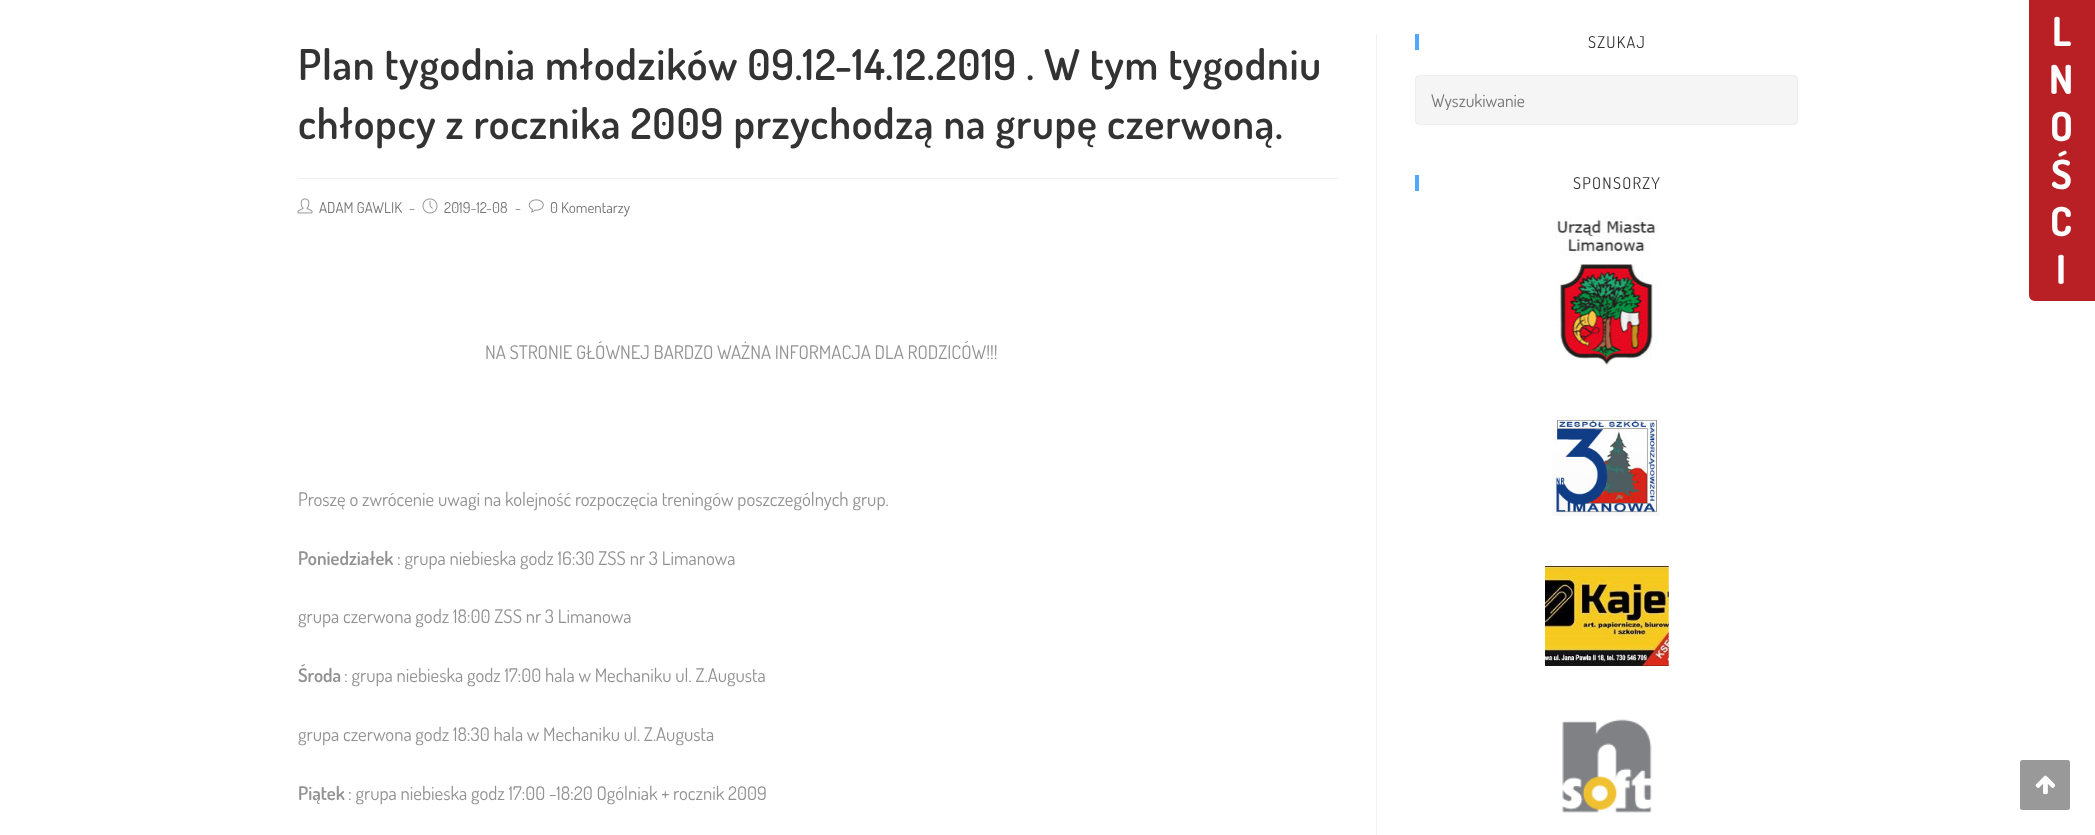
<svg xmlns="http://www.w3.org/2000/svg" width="2095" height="835">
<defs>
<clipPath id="clip1"><rect x="1431" y="89" width="350" height="21"/></clipPath>
</defs>
<rect width="100%" height="100%" fill="#fff"/>
<rect x="1376" y="34" width="1" height="801" fill="#f1f1f1"/>
<rect x="298" y="178" width="1041" height="1" fill="#f1f1f1"/>
<text x="298" y="80" style="font-family:Dosis;font-size:42.5px;font-weight:600;letter-spacing:0.75px;fill:#333">Plan tygodnia młodzików 09.12-14.12.2019 . W tym tygodniu</text>
<text x="298" y="139" style="font-family:Dosis;font-size:42.5px;font-weight:600;letter-spacing:0.75px;fill:#333">chłopcy z rocznika 2009 przychodzą na grupę czerwoną.</text>
<image x="297" y="198" width="16" height="16" href="media/1.png"/>
<text x="319" y="213" style="font-family:Dosis;font-size:15px;fill:#757575">ADAM GAWLIK</text>
<text x="409" y="213" style="font-family:Dosis;font-size:15px;fill:#757575">-</text>
<image x="422" y="198" width="16" height="16" href="media/2.png"/>
<text x="444" y="213" style="font-family:Dosis;font-size:15px;fill:#757575">2019-12-08</text>
<text x="515" y="213" style="font-family:Dosis;font-size:15px;fill:#757575">-</text>
<image x="528" y="199" width="16" height="14" href="media/3.png"/>
<text x="550" y="213" style="font-family:Dosis;font-size:15px;fill:#757575">0 Komentarzy</text>
<text x="485" y="359" style="font-family:Dosis;font-size:18.75px;fill:#929292">NA STRONIE GŁÓWNEJ BARDZO WAŻNA INFORMACJA DLA RODZICÓW!!!</text>
<text x="298" y="506" style="font-family:Dosis;font-size:18.75px;fill:#929292">Proszę o zwrócenie uwagi na kolejność rozpoczęcia treningów poszczególnych grup.</text>
<text x="298" y="565" style="font-family:Dosis;font-size:18.75px;font-weight:600;fill:#929292">Poniedziałek</text>
<text x="397" y="565" style="font-family:Dosis;font-size:18.75px;fill:#929292">: grupa niebieska godz 16:30 ZSS nr 3 Limanowa</text>
<text x="298" y="623" style="font-family:Dosis;font-size:18.75px;fill:#929292">grupa czerwona godz 18:00 ZSS nr 3 Limanowa</text>
<text x="298" y="682" style="font-family:Dosis;font-size:18.75px;font-weight:600;fill:#929292">Środa</text>
<text x="344" y="682" style="font-family:Dosis;font-size:18.75px;fill:#929292">: grupa niebieska godz 17:00 hala w Mechaniku ul. Z.Augusta</text>
<text x="298" y="741" style="font-family:Dosis;font-size:18.75px;fill:#929292">grupa czerwona godz 18:30 hala w Mechaniku ul. Z.Augusta</text>
<text x="298" y="800" style="font-family:Dosis;font-size:18.75px;font-weight:600;fill:#929292">Piątek</text>
<text x="348" y="800" style="font-family:Dosis;font-size:18.75px;fill:#929292">: grupa niebieska godz 17:00 -18:20 Ogólniak + rocznik 2009</text>
<rect x="1415" y="34" width="4" height="16" fill="#52a7fe"/>
<text x="1588" y="48" style="font-family:Dosis;font-size:16.25px;letter-spacing:1.25px;fill:#333">SZUKAJ</text>
<rect x="1415.5" y="75.5" width="382" height="49" rx="3.5" fill="#f5f5f5" stroke="#eee"/>
<g clip-path="url(#clip1)">
<text x="1431" y="107" style="font-family:Dosis;font-size:17.5px;fill:#757575">Wyszukiwanie</text>
</g>
<rect x="1415" y="175" width="4" height="16" fill="#52a7fe"/>
<text x="1573" y="189" style="font-family:Dosis;font-size:16.25px;letter-spacing:1.25px;fill:#333">SPONSORZY</text>
<image x="1555" y="216" width="104" height="150" href="media/4.png"/>
<image x="1552" y="416" width="108" height="100" href="media/5.png"/>
<image x="1545" y="566" width="124" height="100" href="media/6.png"/>
<image x="1562" y="719" width="90" height="94" href="media/7.png"/>
<path d="M2035-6h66v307h-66c-3.5 0-6-2.5-6-6v-295c0-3.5 2.5-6 6-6z" fill="#b82025"/>
<text x="2052" y="46" style="font-family:Dosis;font-size:40px;font-weight:bold;fill:#fff">L</text>
<text x="2049" y="94" style="font-family:Dosis;font-size:40px;font-weight:bold;fill:#fff">N</text>
<text x="2050" y="141" style="font-family:Dosis;font-size:40px;font-weight:bold;fill:#fff">O</text>
<text x="2051" y="189" style="font-family:Dosis;font-size:40px;font-weight:bold;fill:#fff">Ś</text>
<text x="2050" y="236" style="font-family:Dosis;font-size:40px;font-weight:bold;fill:#fff">C</text>
<text x="2056" y="284" style="font-family:Dosis;font-size:40px;font-weight:bold;fill:#fff">I</text>
<rect x="2020" y="760" width="50" height="50" rx="2.5" fill="#999"/>
<image x="2035" y="775" width="21" height="20" href="media/8.png"/>
</svg>
